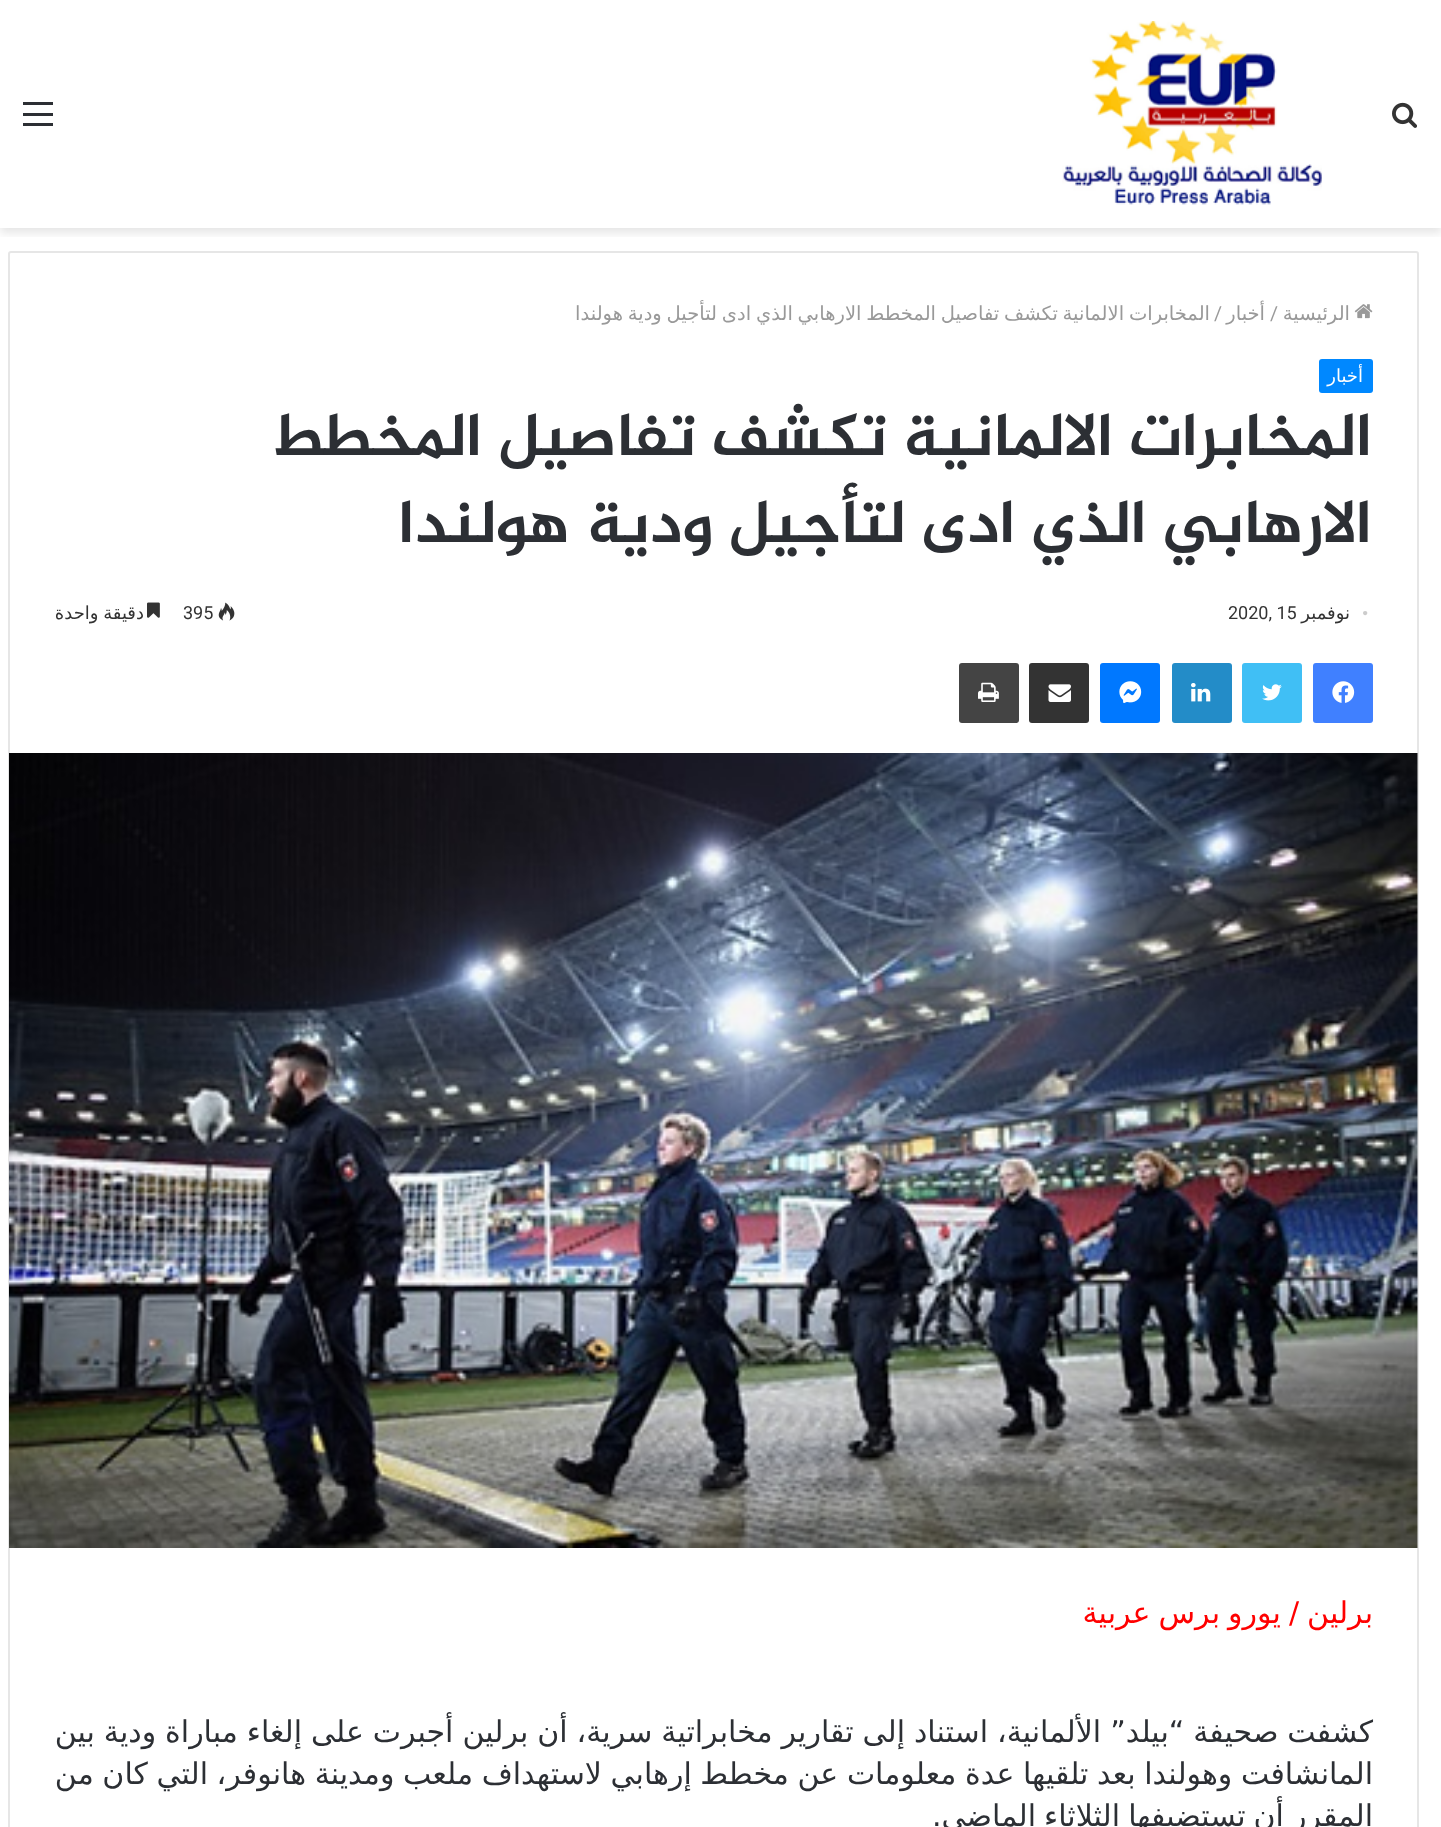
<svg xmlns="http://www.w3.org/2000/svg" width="1441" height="1827">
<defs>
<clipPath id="clip1"><rect x="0" y="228" width="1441" height="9"/></clipPath>
</defs>
<rect width="100%" height="100%" fill="#fff"/>
<g clip-path="url(#clip1)">
<rect y="5" width="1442" height="228" fill="#0000001a" filter="blur(5px)"/>
</g>
<image x="1392" y="102" width="25" height="26" href="media/1.png"/>
<image x="1062" y="21" width="260" height="184" href="media/2.png"/>
<rect x="23" y="113" width="30" height="3" fill="#2c2f34"/>
<rect x="23" y="102" width="30" height="3" fill="#2c2f34"/>
<rect x="23" y="123" width="30" height="3" fill="#2c2f34"/>
<rect x="9" y="252" width="1409" height="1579" rx="2" fill="none" stroke="#e6e6e6" stroke-width="2"/>
<image x="1354" y="304" width="19" height="15" href="media/3.png"/>
<text x="1350" y="320" style="font-family:DejaVu Sans;font-size:19.5px;direction:rtl;fill:#999">الرئيسية</text>
<text x="1270" y="320" style="font-family:Roboto;font-size:19.5px;fill:#999">/</text>
<text x="1265" y="320" style="font-family:DejaVu Sans;font-size:19.5px;direction:rtl;fill:#999">أخبار</text>
<text x="1214" y="320" style="font-family:Roboto;font-size:19.5px;fill:#999">/</text>
<text x="1210" y="320" word-spacing="-1.4" style="font-family:DejaVu Sans;font-size:19.5px;direction:rtl;fill:#999">المخابرات الالمانية تكشف تفاصيل المخطط الارهابي الذي ادى لتأجيل ودية هولندا</text>
<rect x="1319" y="359" width="54" height="34" rx="3" fill="#08f"/>
<text x="1363" y="382" style="font-family:DejaVu Sans;font-size:18px;direction:rtl;fill:#fff">أخبار</text>
<text x="1372" y="455" style="font-family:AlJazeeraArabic;font-size:61.5px;font-weight:bold;direction:rtl;fill:#2c2f34">المخابرات الالمانية تكشف تفاصيل المخطط</text>
<text x="1372" y="542" style="font-family:AlJazeeraArabic;font-size:61.5px;font-weight:bold;direction:rtl;fill:#2c2f34">الارهابي الذي ادى لتأجيل ودية هولندا</text>
<text x="1362" y="619" style="font-family:Liberation Serif;font-size:18px;fill:#ccc">•</text>
<text x="1350" y="619" style="font-family:DejaVu Sans;font-size:18px;direction:rtl;fill:#333">نوفمبر</text>
<text x="1228" y="619" style="font-family:Roboto;font-size:18px;fill:#333">2020, 15</text>
<image x="218" y="602" width="17" height="19" href="media/4.png"/>
<text x="183" y="619" style="font-family:Roboto;font-size:18px;fill:#333">395</text>
<image x="147" y="602" width="13" height="16" href="media/5.png"/>
<text x="144" y="619" word-spacing="-1" style="font-family:DejaVu Sans;font-size:18px;direction:rtl;fill:#333">دقيقة واحدة</text>
<rect x="1313" y="663" width="60" height="60" rx="3" fill="#4080ff"/>
<image x="1332" y="681" width="23" height="22" href="media/6.png"/>
<rect x="1242" y="663" width="60" height="60" rx="3" fill="#40bff5"/>
<image x="1262" y="684" width="20" height="17" href="media/7.png"/>
<rect x="1172" y="663" width="60" height="60" rx="3" fill="#238cc8"/>
<image x="1191" y="683" width="20" height="19" href="media/8.png"/>
<rect x="1100" y="663" width="60" height="60" rx="3" fill="#0078ff"/>
<image x="1119" y="681" width="23" height="22" href="media/9.png"/>
<rect x="1029" y="663" width="60" height="60" rx="3" fill="#333"/>
<image x="1048" y="684" width="23" height="18" href="media/10.png"/>
<rect x="959" y="663" width="60" height="60" rx="3" fill="#444"/>
<image x="978" y="682" width="21" height="20" href="media/11.png"/>
<image x="9" y="753" width="1409" height="795" href="media/12.png"/>
<text x="1373" y="1623" word-spacing="-1.5" style="font-family:DejaVu Sans;font-size:30px;direction:rtl;fill:#f00">برلين / يورو برس عربية</text>
<text x="1373" y="1742" word-spacing="-0.6" style="font-family:DejaVu Sans;font-size:30px;direction:rtl;fill:#2c2f34">كشفت صحيفة “بيلد” الألمانية، استناد إلى تقارير مخابراتية سرية، أن برلين أجبرت على إلغاء مباراة ودية بين</text>
<text x="1373" y="1784" word-spacing="-0.9" style="font-family:DejaVu Sans;font-size:30px;direction:rtl;fill:#2c2f34">المانشافت وهولندا بعد تلقيها عدة معلومات عن مخطط إرهابي لاستهداف ملعب ومدينة هانوفر، التي كان من</text>
<text x="1373" y="1826" word-spacing="-1.5" style="font-family:DejaVu Sans;font-size:30px;direction:rtl;fill:#2c2f34">المقرر أن تستضيفها الثلاثاء الماضي.</text>
</svg>
